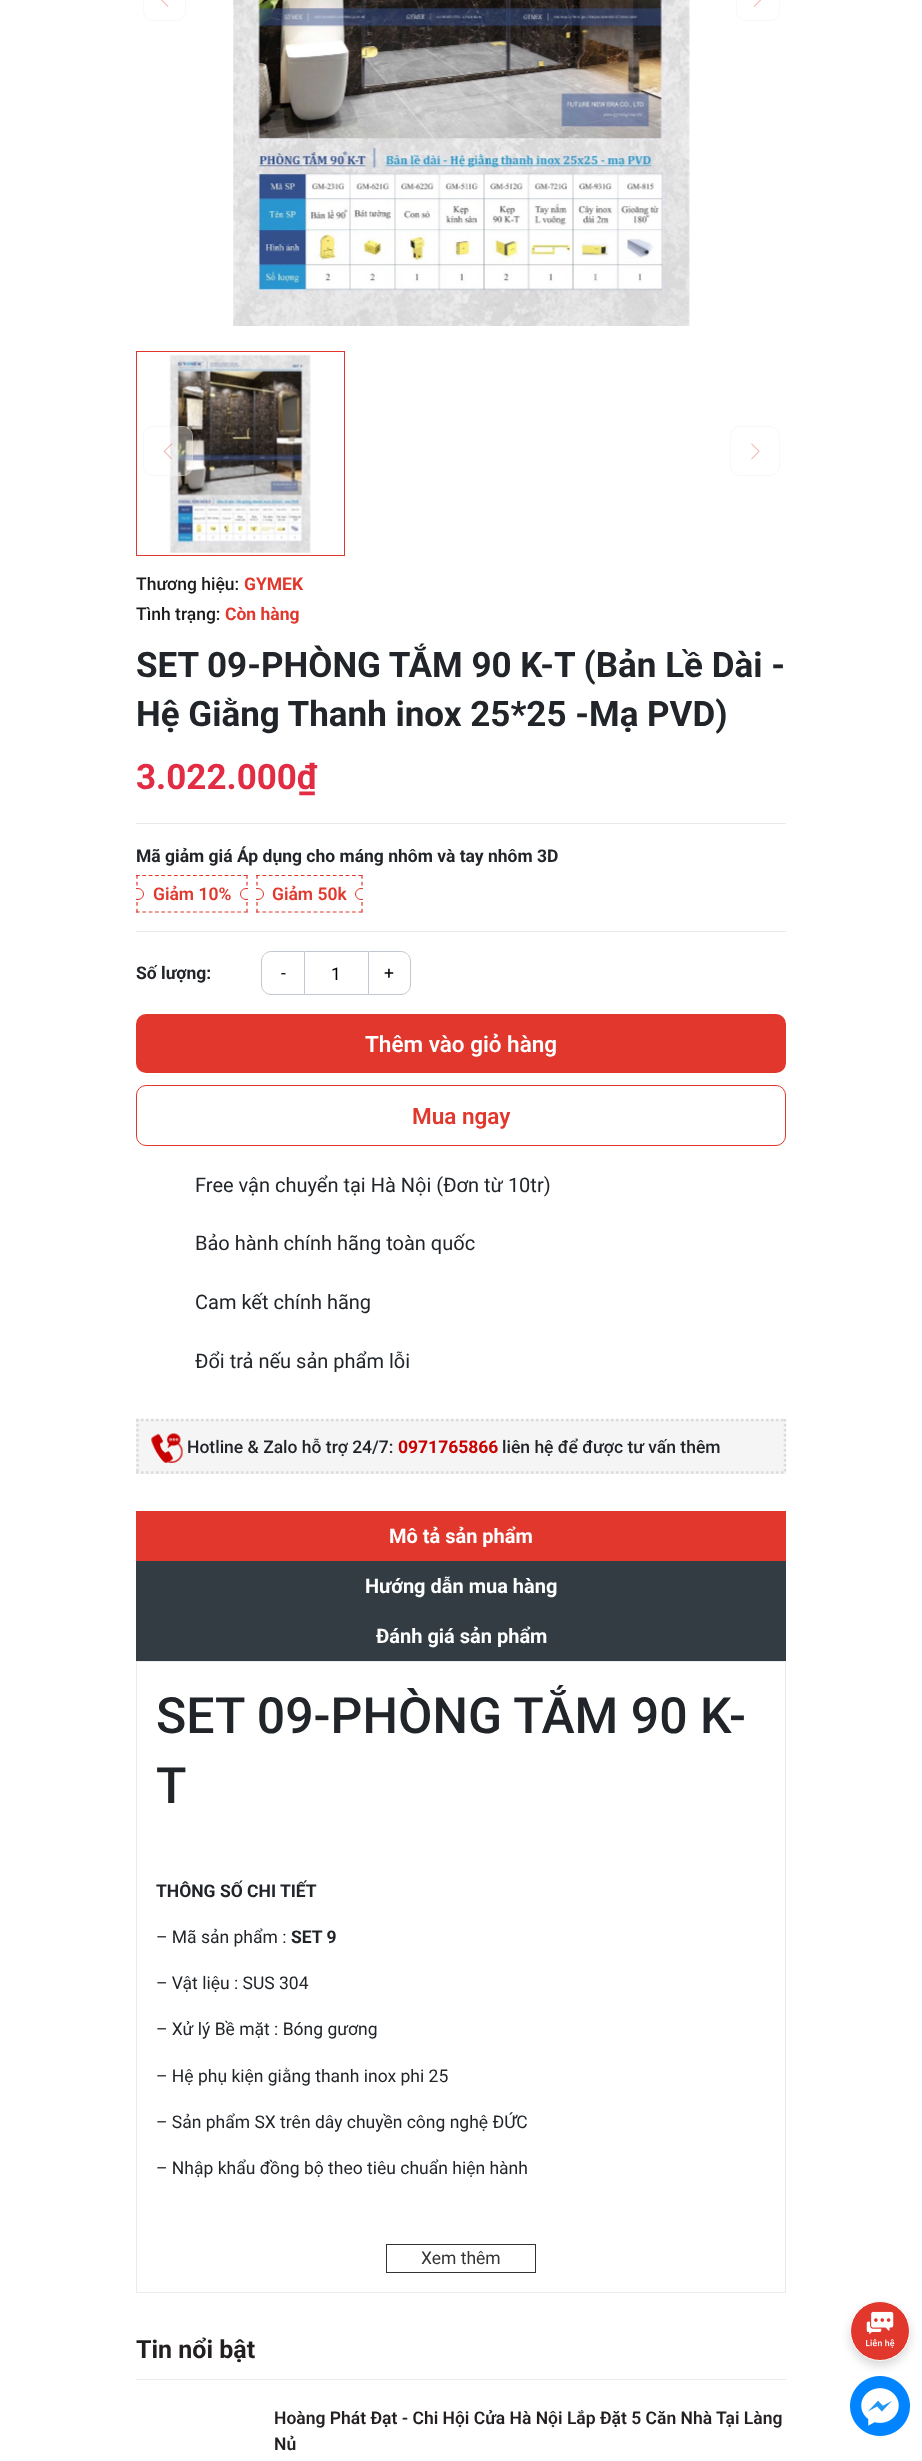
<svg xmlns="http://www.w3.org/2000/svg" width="922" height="2461">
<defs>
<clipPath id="clip1"><rect x="136" y="875" width="112" height="38"/></clipPath>
<clipPath id="clip2"><rect x="256" y="875" width="107" height="38"/></clipPath>
<linearGradient id="g1" gradientUnits="userSpaceOnUse" x1="461" y1="2175" x2="461" y2="2244"><stop offset="0" stop-color="#fff" stop-opacity="0"/><stop offset="0.5" stop-color="#fff" stop-opacity="0.91"/><stop offset="0.55" stop-color="#fff"/></linearGradient>
</defs>
<rect width="100%" height="100%" fill="#fff"/>
<rect x="143.5" y="-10.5" width="42" height="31" rx="9.5" fill="none" stroke="#f8f8f8"/>
<image x="161" y="0" width="8" height="7" href="media/1.png"/>
<image x="233" y="0" width="457" height="326" href="media/2.png"/>
<rect x="736.5" y="-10.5" width="43" height="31" rx="9.5" fill="none" stroke="#f8f8f8"/>
<image x="753" y="0" width="8" height="7" href="media/3.png"/>
<rect x="136.5" y="351.5" width="208" height="204" fill="none" stroke="#e1372c"/>
<image x="169" y="354" width="142" height="200" href="media/4.png"/>
<rect x="143" y="426" width="50" height="50" rx="10" fill="#ffffff59"/>
<rect x="143.5" y="426.5" width="49" height="49" rx="9.5" fill="none" stroke="#eaeaea59"/>
<image x="163" y="443" width="9" height="17" href="media/5.png"/>
<rect x="730.5" y="426.5" width="49" height="49" rx="9.5" fill="none" stroke="#f8f8f8"/>
<image x="751" y="443" width="9" height="17" href="media/6.png"/>
<text x="136" y="590" style="font-family:Roboto;font-size:17.5px;font-weight:500;fill:#1a1a1a">Thương hiệu:</text>
<text x="244" y="590" style="font-family:Roboto;font-size:17.5px;font-weight:bold;fill:#e1372c">GYMEK</text>
<text x="136" y="620" style="font-family:Roboto;font-size:17.5px;font-weight:500;fill:#1a1a1a">Tình trạng:</text>
<text x="225" y="620" style="font-family:Roboto;font-size:17.5px;font-weight:bold;fill:#e1372c">Còn hàng</text>
<text x="136" y="677" style="font-family:Roboto;font-size:35px;font-weight:bold;fill:#212529">SET 09-PHÒNG TẮM 90 K-T (Bản Lề Dài -</text>
<text x="136" y="726" style="font-family:Roboto;font-size:35px;font-weight:bold;fill:#212529">Hệ Giằng Thanh inox 25*25 -Mạ PVD)</text>
<text x="136" y="789" style="font-family:Roboto;font-size:35px;font-weight:bold;fill:#e12c43">3.022.000₫</text>
<rect x="136" y="823" width="650" height="1" fill="#eaeaeb"/>
<rect x="136" y="931" width="650" height="1" fill="#eaeaeb"/>
<text x="136" y="862" style="font-family:Roboto;font-size:17.5px;font-weight:bold;fill:#212529">Mã giảm giá Áp dụng cho máng nhôm và tay nhôm 3D</text>
<g clip-path="url(#clip1)">
<path d="M136 875.5h111.5" fill="none" stroke="#e1372c" stroke-width="1.2" stroke-dasharray="3.75 2.58"/>
</g>
<path d="M247 875v37.5" fill="none" stroke="#e1372c" stroke-width="1.2" stroke-dasharray="3.75 3"/>
<path d="M136 912h111.5" fill="none" stroke="#e1372c" stroke-width="1.2" stroke-dasharray="3.75 2.58"/>
<path d="M137 875v37.5" fill="none" stroke="#e1372c" stroke-width="1.2" stroke-dasharray="3.75 3"/>
<g clip-path="url(#clip1)">
<rect x="131.5" y="888.5" width="12" height="11" rx="5.5" fill="#fff" stroke="#e1372c"/>
</g>
<text x="153" y="900" style="font-family:Roboto;font-size:17.5px;font-weight:600;fill:#e1372c">Giảm 10%</text>
<g clip-path="url(#clip1)">
<rect x="240.5" y="888.5" width="12" height="11" rx="5.5" fill="#fff" stroke="#e1372c"/>
</g>
<g clip-path="url(#clip2)">
<path d="M256 875.5h106.5" fill="none" stroke="#e1372c" stroke-width="1.2" stroke-dasharray="3.75 2.65"/>
</g>
<path d="M362 875v37.5" fill="none" stroke="#e1372c" stroke-width="1.2" stroke-dasharray="3.75 3"/>
<path d="M256 912h106.5" fill="none" stroke="#e1372c" stroke-width="1.2" stroke-dasharray="3.75 2.65"/>
<path d="M257 875v37.5" fill="none" stroke="#e1372c" stroke-width="1.2" stroke-dasharray="3.75 3"/>
<g clip-path="url(#clip2)">
<rect x="251.5" y="888.5" width="12" height="11" rx="5.5" fill="#fff" stroke="#e1372c"/>
</g>
<text x="272" y="900" style="font-family:Roboto;font-size:17.5px;font-weight:600;fill:#e1372c">Giảm 50k</text>
<g clip-path="url(#clip2)">
<rect x="355.5" y="888.5" width="12" height="11" rx="5.5" fill="#fff" stroke="#e1372c"/>
</g>
<text x="136" y="979" style="font-family:Roboto;font-size:17.5px;font-weight:bold;fill:#212529">Số lượng:</text>
<path d="M271 951.5h33.5v43h-33.5c-5 0-9.5-4.5-9.5-9.5v-24c0-5 4.5-9.5 9.5-9.5z" fill="none" stroke="#c1c8d1"/>
<text x="281" y="979" style="font-family:Roboto;font-size:17.5px;fill:#000">-</text>
<rect x="305" y="951" width="63" height="1" fill="#c1c8d1"/>
<rect x="305" y="994" width="63" height="1" fill="#c1c8d1"/>
<text x="331" y="980" style="font-family:Roboto;font-size:17.5px;fill:#000">1</text>
<path d="M368.5 951.5h32.5c5 0 9.5 4.5 9.5 9.5v24c0 5-4.5 9.5-9.5 9.5h-32.5z" fill="none" stroke="#c1c8d1"/>
<text x="384" y="979" style="font-family:Roboto;font-size:17.5px;fill:#000">+</text>
<rect x="136" y="1014" width="650" height="59" rx="10" fill="#e1372c"/>
<text x="365" y="1052" style="font-family:Roboto;font-size:22.5px;font-weight:600;fill:#fff">Thêm vào giỏ hàng</text>
<rect x="136.5" y="1085.5" width="649" height="60" rx="9.5" fill="none" stroke="#e1372c"/>
<text x="412" y="1124" style="font-family:Roboto;font-size:22.5px;font-weight:600;fill:#e1372c">Mua ngay</text>
<text x="195" y="1192" style="font-family:Roboto;font-size:20px;fill:#212529">Free vận chuyển tại Hà Nội (Đơn từ 10tr)</text>
<text x="195" y="1250" style="font-family:Roboto;font-size:20px;fill:#212529">Bảo hành chính hãng toàn quốc</text>
<text x="195" y="1309" style="font-family:Roboto;font-size:20px;fill:#212529">Cam kết chính hãng</text>
<text x="195" y="1368" style="font-family:Roboto;font-size:20px;fill:#212529">Đổi trả nếu sản phẩm lỗi</text>
<rect x="136" y="1419" width="650" height="55" fill="#f5f5f5"/>
<path d="M136 1420h650" fill="none" stroke="#dbdbdb" stroke-width="2.5" stroke-dasharray="2.5 2.5"/>
<path d="M785 1419v55" fill="none" stroke="#dbdbdb" stroke-width="2.5" stroke-dasharray="2.5 2.5"/>
<path d="M136 1472.5h650" fill="none" stroke="#dbdbdb" stroke-width="2.5" stroke-dasharray="2.5 2.5"/>
<path d="M137.5 1419v55" fill="none" stroke="#dbdbdb" stroke-width="2.5" stroke-dasharray="2.5 2.5"/>
<image x="151" y="1433" width="32" height="30" href="media/7.png"/>
<text x="187" y="1453" style="font-family:Roboto;font-size:17.5px;font-weight:500;fill:#212529">Hotline &amp; Zalo hỗ trợ 24/7:</text>
<text x="398" y="1453" style="font-family:Roboto;font-size:17.5px;font-weight:bold;fill:#c90000">0971765866</text>
<text x="502" y="1453" style="font-family:Roboto;font-size:17.5px;font-weight:500;fill:#212529">liên hệ để được tư vấn thêm</text>
<rect x="136" y="1511" width="650" height="50" fill="#e1372c"/>
<text x="389" y="1543" style="font-family:Roboto;font-size:20px;font-weight:bold;fill:#fff">Mô tả sản phẩm</text>
<rect x="136" y="1561" width="650" height="100" fill="#323c42"/>
<text x="365" y="1593" style="font-family:Roboto;font-size:20px;font-weight:bold;fill:#fff">Hướng dẫn mua hàng</text>
<text x="376" y="1643" style="font-family:Roboto;font-size:20px;font-weight:bold;fill:#fff">Đánh giá sản phẩm</text>
<rect x="136.5" y="1661.5" width="649" height="631" fill="none" stroke="#ebebeb"/>
<text x="156" y="1733" style="font-family:Roboto;font-size:50px;font-weight:500;fill:#212529">SET 09-PHÒNG TẮM 90 K-</text>
<text x="156" y="1803" style="font-family:Roboto;font-size:50px;font-weight:500;fill:#212529">T</text>
<text x="156" y="1897" style="font-family:Roboto;font-size:17.5px;font-weight:bold;fill:#212529">THÔNG SỐ CHI TIẾT</text>
<text x="156" y="1943" style="font-family:Roboto;font-size:17.5px;fill:#212529">– Mã sản phẩm :</text>
<text x="291" y="1943" style="font-family:Roboto;font-size:17.5px;font-weight:bold;fill:#212529">SET 9</text>
<text x="156" y="1989" style="font-family:Roboto;font-size:17.5px;fill:#212529">– Vật liệu : SUS 304</text>
<text x="156" y="2035" style="font-family:Roboto;font-size:17.5px;fill:#212529">– Xử lý Bề mặt : Bóng gương</text>
<text x="156" y="2082" style="font-family:Roboto;font-size:17.5px;fill:#212529">– Hệ phụ kiện giằng thanh inox phi 25</text>
<text x="156" y="2128" style="font-family:Roboto;font-size:17.5px;fill:#212529">– Sản phẩm SX trên dây chuyền công nghệ ĐỨC</text>
<text x="156" y="2174" style="font-family:Roboto;font-size:17.5px;fill:#212529">– Nhập khẩu đồng bộ theo tiêu chuẩn hiện hành</text>
<rect x="197" y="2176" width="275" height="2" fill="url(#g1)"/>
<rect x="386.5" y="2244.5" width="149" height="28" fill="none" stroke="#333"/>
<text x="421" y="2264" style="font-family:Roboto;font-size:17.5px;fill:#333">Xem thêm</text>
<rect x="136" y="2379" width="650" height="1" fill="#ebebeb"/>
<text x="136" y="2358" style="font-family:Roboto;font-size:25px;font-weight:bold;fill:#231f20">Tin nổi bật</text>
<text x="274" y="2424" style="font-family:Roboto;font-size:17.5px;font-weight:600;fill:#231f20">Hoàng Phát Đạt - Chi Hội Cửa Hà Nội Lắp Đặt 5 Căn Nhà Tại Làng</text>
<text x="274" y="2450" style="font-family:Roboto;font-size:17.5px;font-weight:600;fill:#231f20">Nủ</text>
<rect x="850" y="2306" width="60" height="60" rx="30" fill="#00000026" filter="blur(5px)"/>
<circle cx="880" cy="2331" r="29.5" fill="#e1372c" stroke="#fff"/>
<image x="866" y="2311" width="29" height="37" href="media/8.png"/>
<image x="850" y="2376" width="60" height="60" href="media/9.png"/>
</svg>
